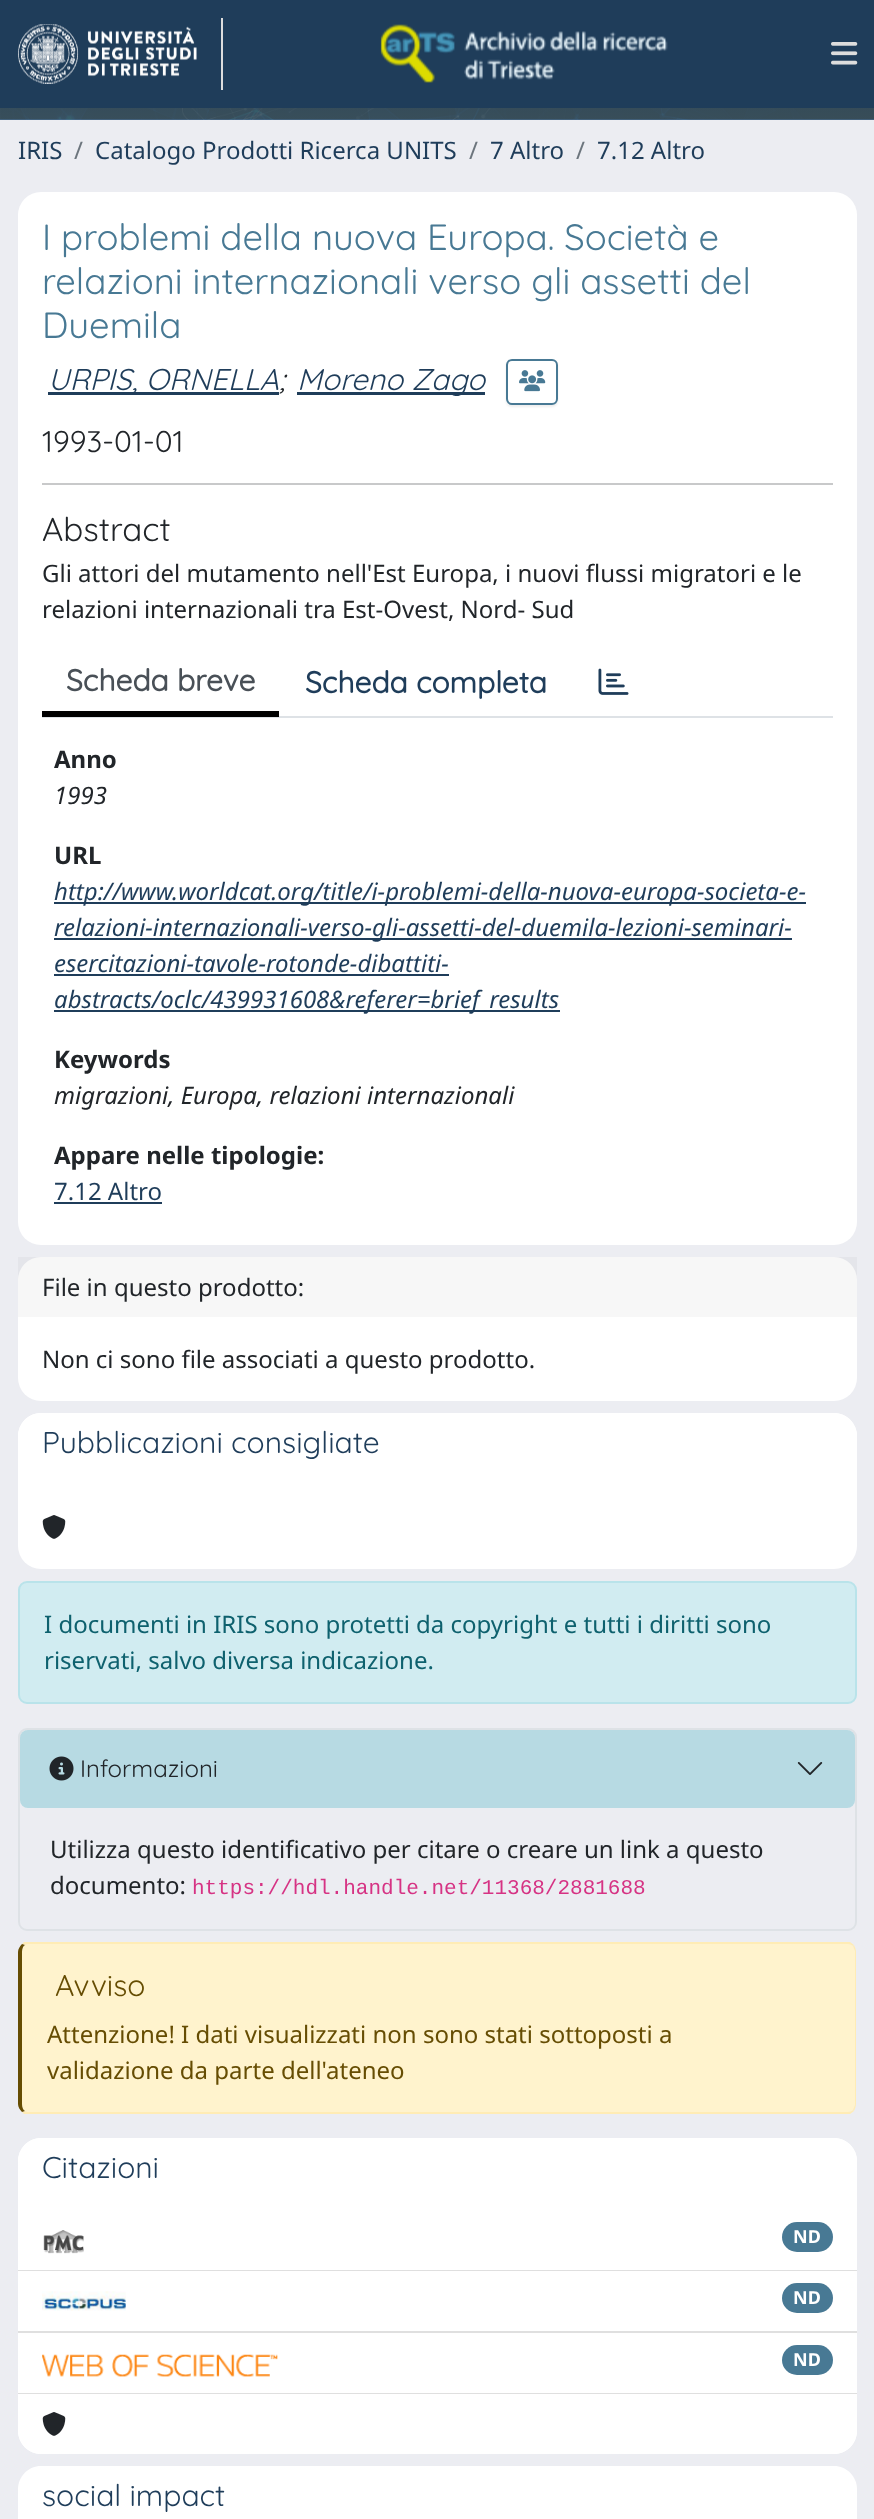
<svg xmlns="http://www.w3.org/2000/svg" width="874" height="2519">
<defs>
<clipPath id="clip1"><path d="M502 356h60v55h-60zm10 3h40c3.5 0 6 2.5 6 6v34c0 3.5-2.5 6-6 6h-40c-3.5 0-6-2.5-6-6v-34c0-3.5 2.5-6 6-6z" clip-rule="evenodd"/></clipPath>
</defs>
<rect width="100%" height="100%" fill="#ecedf2"/>
<rect width="874" height="108" fill="#1f3d5a"/>
<rect x="221" y="18" width="2" height="72" fill="#ddd"/>
<image x="18" y="24" width="179" height="60" href="media/1.png"/>
<image x="380" y="24" width="288" height="59" href="media/2.png"/>
<image x="831" y="42" width="27" height="23" href="media/3.png"/>
<rect y="119" width="874" height="1" fill="#487994"/>
<image x="0" y="108" width="874" height="12" href="media/4.png"/>
<text x="18" y="159" style="font-family:Noto Sans;font-size:24px;fill:#1f3d5a">IRIS</text>
<text x="74" y="159" style="font-family:Noto Sans;font-size:24px;fill:#6c757d">/</text>
<text x="95" y="159" style="font-family:Noto Sans;font-size:24px;fill:#1f3d5a">Catalogo Prodotti Ricerca UNITS</text>
<text x="469" y="159" style="font-family:Noto Sans;font-size:24px;fill:#6c757d">/</text>
<text x="490" y="159" style="font-family:Noto Sans;font-size:24px;fill:#1f3d5a">7 Altro</text>
<text x="576" y="159" style="font-family:Noto Sans;font-size:24px;fill:#6c757d">/</text>
<text x="597" y="159" style="font-family:Noto Sans;font-size:24px;fill:#1f3d5a">7.12 Altro</text>
<rect x="18" y="192" width="839" height="1053" rx="23" fill="#fff"/>
<text x="42" y="250" style="font-family:Quicksand;font-size:36.5px;font-weight:300;fill:#487994">I problemi della nuova Europa. Società e</text>
<text x="42" y="294" style="font-family:Quicksand;font-size:36.5px;font-weight:300;fill:#487994">relazioni internazionali verso gli assetti del</text>
<text x="42" y="338" style="font-family:Quicksand;font-size:36.5px;font-weight:300;fill:#487994">Duemila</text>
<rect x="48" y="392" width="231" height="3" fill="#1f3d5a"/>
<text x="48" y="390" style="font-family:Quicksand;font-size:30px;font-weight:300;font-style:italic;fill:#1f3d5a">URPIS, ORNELLA</text>
<text x="279" y="390" style="font-family:Quicksand;font-size:30px;font-weight:300;font-style:italic;fill:#212529">;</text>
<rect x="297" y="392" width="188" height="3" fill="#1f3d5a"/>
<text x="297" y="390" style="font-family:Quicksand;font-size:30px;font-weight:300;font-style:italic;fill:#1f3d5a">Moreno Zago</text>
<g clip-path="url(#clip1)">
<rect x="506" y="360" width="52" height="47" rx="6" fill="#00000012" filter="blur(1px)"/>
</g>
<rect x="507" y="360" width="50" height="44" rx="5" fill="none" stroke="#487994" stroke-width="2"/>
<image x="519" y="370" width="27" height="22" href="media/5.png"/>
<text x="42" y="452" style="font-family:Quicksand;font-size:30px;font-weight:300;fill:#212529">1993-01-01</text>
<rect x="42" y="483" width="791" height="2" fill="#c8c9ca"/>
<text x="42" y="541" style="font-family:Quicksand;font-size:33px;font-weight:300;fill:#212529">Abstract</text>
<text x="42" y="582" style="font-family:Noto Sans;font-size:24px;fill:#212529">Gli attori del mutamento nell'Est Europa, i nuovi flussi migratori e le</text>
<text x="42" y="618" style="font-family:Noto Sans;font-size:24px;fill:#212529">relazioni internazionali tra Est-Ovest, Nord- Sud</text>
<rect x="42" y="716" width="791" height="2" fill="#dee2e6"/>
<rect x="42" y="711" width="237" height="6" fill="#000"/>
<text x="66" y="691" style="font-family:Quicksand;font-size:30px;font-weight:bold;fill:#495057">Scheda breve</text>
<text x="305" y="693" style="font-family:Quicksand;font-size:30px;font-weight:bold;fill:#1f3d5a">Scheda completa</text>
<image x="598" y="668" width="31" height="27" href="media/6.png"/>
<text x="54" y="768" style="font-family:Noto Sans;font-size:24px;font-weight:bold;fill:#212529">Anno</text>
<text x="54" y="804" style="font-family:Noto Sans;font-size:24px;font-style:italic;fill:#212529">1993</text>
<text x="54" y="864" style="font-family:Noto Sans;font-size:24px;font-weight:bold;fill:#212529">URL</text>
<rect x="54" y="902" width="752" height="2" fill="#1f3d5a"/>
<text x="54" y="900" style="font-family:Noto Sans;font-size:24px;font-style:italic;fill:#1f3d5a">http://www.worldcat.org/title/i-problemi-della-nuova-europa-societa-e-</text>
<rect x="54" y="938" width="738" height="2" fill="#1f3d5a"/>
<text x="54" y="936" style="font-family:Noto Sans;font-size:24px;font-style:italic;fill:#1f3d5a">relazioni-internazionali-verso-gli-assetti-del-duemila-lezioni-seminari-</text>
<text x="54" y="972" style="font-family:Noto Sans;font-size:24px;font-style:italic;fill:#1f3d5a">esercitazioni-tavole-rotonde-dibattiti-</text>
<rect x="54" y="974" width="395" height="2" fill="#1f3d5a"/>
<rect x="54" y="1010" width="506" height="2" fill="#1f3d5a"/>
<text x="54" y="1008" style="font-family:Noto Sans;font-size:24px;font-style:italic;fill:#1f3d5a">abstracts/oclc/439931608&amp;referer=brief_results</text>
<text x="54" y="1068" style="font-family:Noto Sans;font-size:24px;font-weight:bold;fill:#212529">Keywords</text>
<text x="54" y="1104" style="font-family:Noto Sans;font-size:24px;font-style:italic;fill:#212529">migrazioni, Europa, relazioni internazionali</text>
<text x="54" y="1164" style="font-family:Noto Sans;font-size:24px;font-weight:bold;fill:#212529">Appare nelle tipologie:</text>
<text x="54" y="1200" style="font-family:Noto Sans;font-size:24px;fill:#1f3d5a">7.12 Altro</text>
<rect x="54" y="1202" width="108" height="2" fill="#1f3d5a"/>
<rect x="18" y="1257" width="839" height="144" rx="23" fill="#fff"/>
<rect x="18" y="1257" width="839" height="60" fill="#00000008"/>
<text x="42" y="1296" style="font-family:Noto Sans;font-size:24px;fill:#212529">File in questo prodotto:</text>
<text x="42" y="1368" style="font-family:Noto Sans;font-size:24px;fill:#212529">Non ci sono file associati a questo prodotto.</text>
<rect x="18" y="1413" width="839" height="156" rx="23" fill="#fff"/>
<path d="M41 1413h793c12.5 0 23 10.5 23 23v49h-839v-49c0-12.5 10.5-23 23-23z" fill="#fff"/>
<text x="42" y="1453" style="font-family:Quicksand;font-size:30px;font-weight:300;fill:#1f3d5a">Pubblicazioni consigliate</text>
<image x="42" y="1515" width="24" height="24" href="media/7.png"/>
<rect x="19" y="1582" width="837" height="121" rx="8" fill="#d1ecf1" stroke="#b9e3ea" stroke-width="2"/>
<text x="44" y="1633" style="font-family:Noto Sans;font-size:24px;fill:#0e616e">I documenti in IRIS sono protetti da copyright e tutti i diritti sono</text>
<text x="44" y="1669" style="font-family:Noto Sans;font-size:24px;fill:#0e616e">riservati, salvo diversa indicazione.</text>
<rect x="19" y="1729" width="837" height="201" rx="8" fill="none" stroke="#dee2e6" stroke-width="2"/>
<rect x="20" y="1730" width="835" height="78" rx="8" fill="#17a2b840"/>
<image x="49" y="1756" width="25" height="25" href="media/8.png"/>
<text x="80" y="1777" style="font-family:Quicksand;font-size:24px;font-weight:300;fill:#212529">Informazioni</text>
<image x="797" y="1762" width="26" height="13" href="media/9.png"/>
<text x="50" y="1858" style="font-family:Noto Sans;font-size:24px;fill:#212529">Utilizza questo identificativo per citare o creare un link a questo</text>
<text x="50" y="1894" style="font-family:Noto Sans;font-size:24px;fill:#212529">documento:</text>
<text x="192" y="1894" style="font-family:Liberation Mono;font-size:21px;fill:#d63384">https://hdl.handle.net/11368/2881688</text>
<path d="M27 1944h821c4 0 7 3 7 8v152c0 5-3 8-7 8h-821c-2 0-5-3-5-8v-152c0-5 3-8 5-8z" fill="#fff3cd"/>
<path d="M27 1944l-2 1l-3-1l2-2h826l4 3l-1 1c-1-1-3-2-5-2z" fill="#ffecb5"/>
<path d="M854 1945c1 2 2 5 2 7v152c0 2-1 5-2 7l-1-1l2-5v-154l-2-5z" fill="#ffecb5"/>
<path d="M24 2114l-2-2l3-1l2 1h821c2 0 4-1 5-2l1 1l-4 3z" fill="#ffecb5"/>
<path d="M18 1952v152c0 3 2 6 4 8l3-1c-2-1-3-4-3-7v-152c0-3 1-6 3-7l-3-1c-2 2-4 5-4 8z" fill="#664d03"/>
<text x="55" y="1996" style="font-family:Quicksand;font-size:30px;font-weight:300;fill:#664d03">Avviso</text>
<text x="47" y="2043" style="font-family:Noto Sans;font-size:24px;fill:#664d03">Attenzione! I dati visualizzati non sono stati sottoposti a</text>
<text x="47" y="2079" style="font-family:Noto Sans;font-size:24px;fill:#664d03">validazione da parte dell'ateneo</text>
<rect x="18" y="2138" width="839" height="316" rx="23" fill="#fff"/>
<path d="M41 2138h793c12.5 0 23 10.5 23 23v49h-839v-49c0-12.5 10.5-23 23-23z" fill="#fff"/>
<text x="42" y="2178" style="font-family:Quicksand;font-size:30px;font-weight:300;fill:#1f3d5a">Citazioni</text>
<rect x="18" y="2270" width="839" height="1" fill="#dfdfdf"/>
<image x="43" y="2230" width="41" height="24" href="media/10.png"/>
<rect x="782" y="2222" width="51" height="30" rx="15" fill="#487994"/>
<text x="793" y="2243" style="font-family:Noto Sans;font-size:18px;font-weight:bold;fill:#fff">ND</text>
<rect x="18" y="2331" width="839" height="2" fill="#dfdfdf"/>
<image x="42" y="2291" width="84" height="20" href="media/11.png"/>
<rect x="782" y="2283" width="51" height="30" rx="15" fill="#487994"/>
<text x="793" y="2304" style="font-family:Noto Sans;font-size:18px;font-weight:bold;fill:#fff">ND</text>
<rect x="18" y="2393" width="839" height="1" fill="#dfdfdf"/>
<image x="42" y="2354" width="236" height="23" href="media/12.png"/>
<rect x="782" y="2345" width="51" height="30" rx="15" fill="#487994"/>
<text x="793" y="2366" style="font-family:Noto Sans;font-size:18px;font-weight:bold;fill:#fff">ND</text>
<path d="M18 2394h839v37c0 12.5-10.5 23-23 23h-793c-12.5 0-23-10.5-23-23z" fill="#fff"/>
<image x="42" y="2412" width="24" height="24" href="media/7.png"/>
<path d="M41 2466h793c12.5 0 23 10.5 23 23v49h-839v-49c0-12.5 10.5-23 23-23z" fill="#fff"/>
<text x="42" y="2506" style="font-family:Quicksand;font-size:30px;font-weight:300;fill:#1f3d5a">social impact</text>
</svg>
